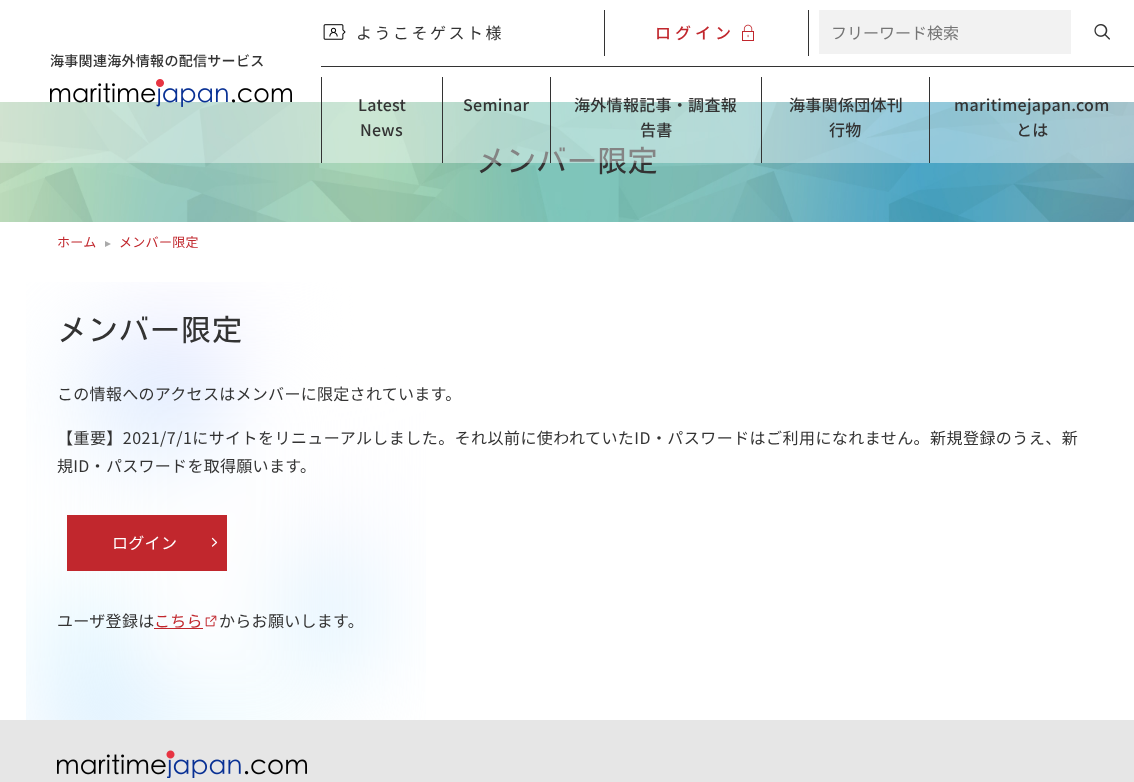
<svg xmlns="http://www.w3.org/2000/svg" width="1134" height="782">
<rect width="100%" height="100%" fill="#fff"/>
<image x="0" y="102" width="1134" height="120" href="media/5.png"/>
<text x="476" y="172" style="font-family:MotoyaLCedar;font-size:30px;letter-spacing:0.3px;fill:#333">メンバー限定</text>
<rect y="102" width="1134" height="61" fill="#ffffff66"/>
<text x="50" y="66" style="font-family:Noto Sans JP;font-size:14px;font-weight:500;letter-spacing:0.3px;fill:#333">海事関連海外情報の配信サービス</text>
<image x="50" y="79" width="242" height="28" href="media/1.png"/>
<rect x="321" y="66" width="813" height="1" fill="#333"/>
<rect x="604" y="10" width="1" height="46" fill="#333"/>
<image x="323" y="24" width="23" height="16" href="media/2.png"/>
<text x="356" y="39" style="font-family:Noto Sans JP;font-size:16px;letter-spacing:2.5px;fill:#333">ようこそゲスト様</text>
<rect x="808" y="10" width="1" height="46" fill="#333"/>
<text x="655" y="39" style="font-family:Noto Sans JP;font-size:16px;font-weight:500;letter-spacing:4px;fill:#c1272d">ログイン</text>
<image x="742" y="24" width="12" height="17" href="media/3.png"/>
<rect x="819" y="10" width="252" height="44" fill="#f2f2f2"/>
<text x="831" y="39" style="font-family:Noto Sans JP;font-size:16px;fill:#757575">フリーワード検索</text>
<image x="1094" y="24" width="16" height="16" href="media/4.png"/>
<rect x="321" y="77" width="1" height="86" fill="#333"/>
<text x="358" y="111" style="font-family:Noto Sans JP;font-size:16px;font-weight:500;letter-spacing:0.3px;fill:#333">Latest</text>
<text x="360" y="136" style="font-family:Noto Sans JP;font-size:16px;font-weight:500;letter-spacing:0.3px;fill:#333">News</text>
<rect x="442" y="77" width="1" height="86" fill="#333"/>
<text x="463" y="111" style="font-family:Noto Sans JP;font-size:16px;font-weight:500;letter-spacing:0.3px;fill:#333">Seminar</text>
<rect x="550" y="77" width="1" height="86" fill="#333"/>
<text x="574" y="111" style="font-family:Noto Sans JP;font-size:16px;font-weight:500;letter-spacing:0.3px;fill:#333">海外情報記事・調査報</text>
<text x="640" y="136" style="font-family:Noto Sans JP;font-size:16px;font-weight:500;letter-spacing:0.3px;fill:#333">告書</text>
<rect x="761" y="77" width="1" height="86" fill="#333"/>
<text x="789" y="111" style="font-family:Noto Sans JP;font-size:16px;font-weight:500;letter-spacing:0.3px;fill:#333">海事関係団体刊</text>
<text x="829" y="136" style="font-family:Noto Sans JP;font-size:16px;font-weight:500;letter-spacing:0.3px;fill:#333">行物</text>
<rect x="929" y="77" width="1" height="86" fill="#333"/>
<text x="954" y="111" style="font-family:Noto Sans JP;font-size:16px;font-weight:500;letter-spacing:0.3px;fill:#333">maritimejapan.com</text>
<text x="1016" y="136" style="font-family:Noto Sans JP;font-size:16px;font-weight:500;letter-spacing:0.3px;fill:#333">とは</text>
<text x="57" y="247" style="font-family:Noto Sans JP;font-size:13px;letter-spacing:0.3px;fill:#c1272d">ホーム</text>
<path d="M105 247v-6l6 3z" fill="#aaa"/>
<text x="119" y="247" style="font-family:Noto Sans JP;font-size:13px;letter-spacing:0.3px;fill:#c1272d">メンバー限定</text>
<image x="26" y="282" width="400" height="438" href="media/6.png"/>
<text x="57" y="341" style="font-family:MotoyaLCedar;font-size:30px;letter-spacing:1px;fill:#333">メンバー限定</text>
<text x="57" y="400" style="font-family:Noto Sans JP;font-size:16px;letter-spacing:0.3px;fill:#333">この情報へのアクセスはメンバーに限定されています。</text>
<text x="57" y="444" style="font-family:Noto Sans JP;font-size:16px;letter-spacing:0.45px;fill:#333">【重要】2021/7/1にサイトをリニューアルしました。それ以前に使われていたID・パスワードはご利用になれません。新規登録のうえ、新</text>
<text x="57" y="472" style="font-family:Noto Sans JP;font-size:16px;letter-spacing:0.3px;fill:#333">規ID・パスワードを取得願います。</text>
<rect x="67" y="515" width="160" height="56" fill="#c1272d"/>
<text x="112" y="549" style="font-family:Noto Sans JP;font-size:16px;letter-spacing:0.3px;fill:#fff">ログイン</text>
<path d="M212.5 538.5l4 4l-4 3.5" fill="none" stroke="#fff" stroke-width="1.2" stroke-linecap="round" stroke-linejoin="round"/>
<text x="57" y="627" style="font-family:Noto Sans JP;font-size:16px;letter-spacing:0.3px;fill:#333">ユーザ登録は</text>
<text x="154" y="627" style="font-family:Noto Sans JP;font-size:16px;letter-spacing:0.3px;fill:#c1272d">こちら</text>
<rect x="154" y="628" width="49" height="1" fill="#c1272d"/>
<image x="205" y="615" width="12" height="12" href="media/7.png"/>
<text x="219" y="627" style="font-family:Noto Sans JP;font-size:16px;letter-spacing:0.3px;fill:#333">からお願いします。</text>
<rect y="720" width="1134" height="62" fill="#e6e6e6"/>
<image x="57" y="750" width="250" height="28" href="media/8.png"/>
</svg>
